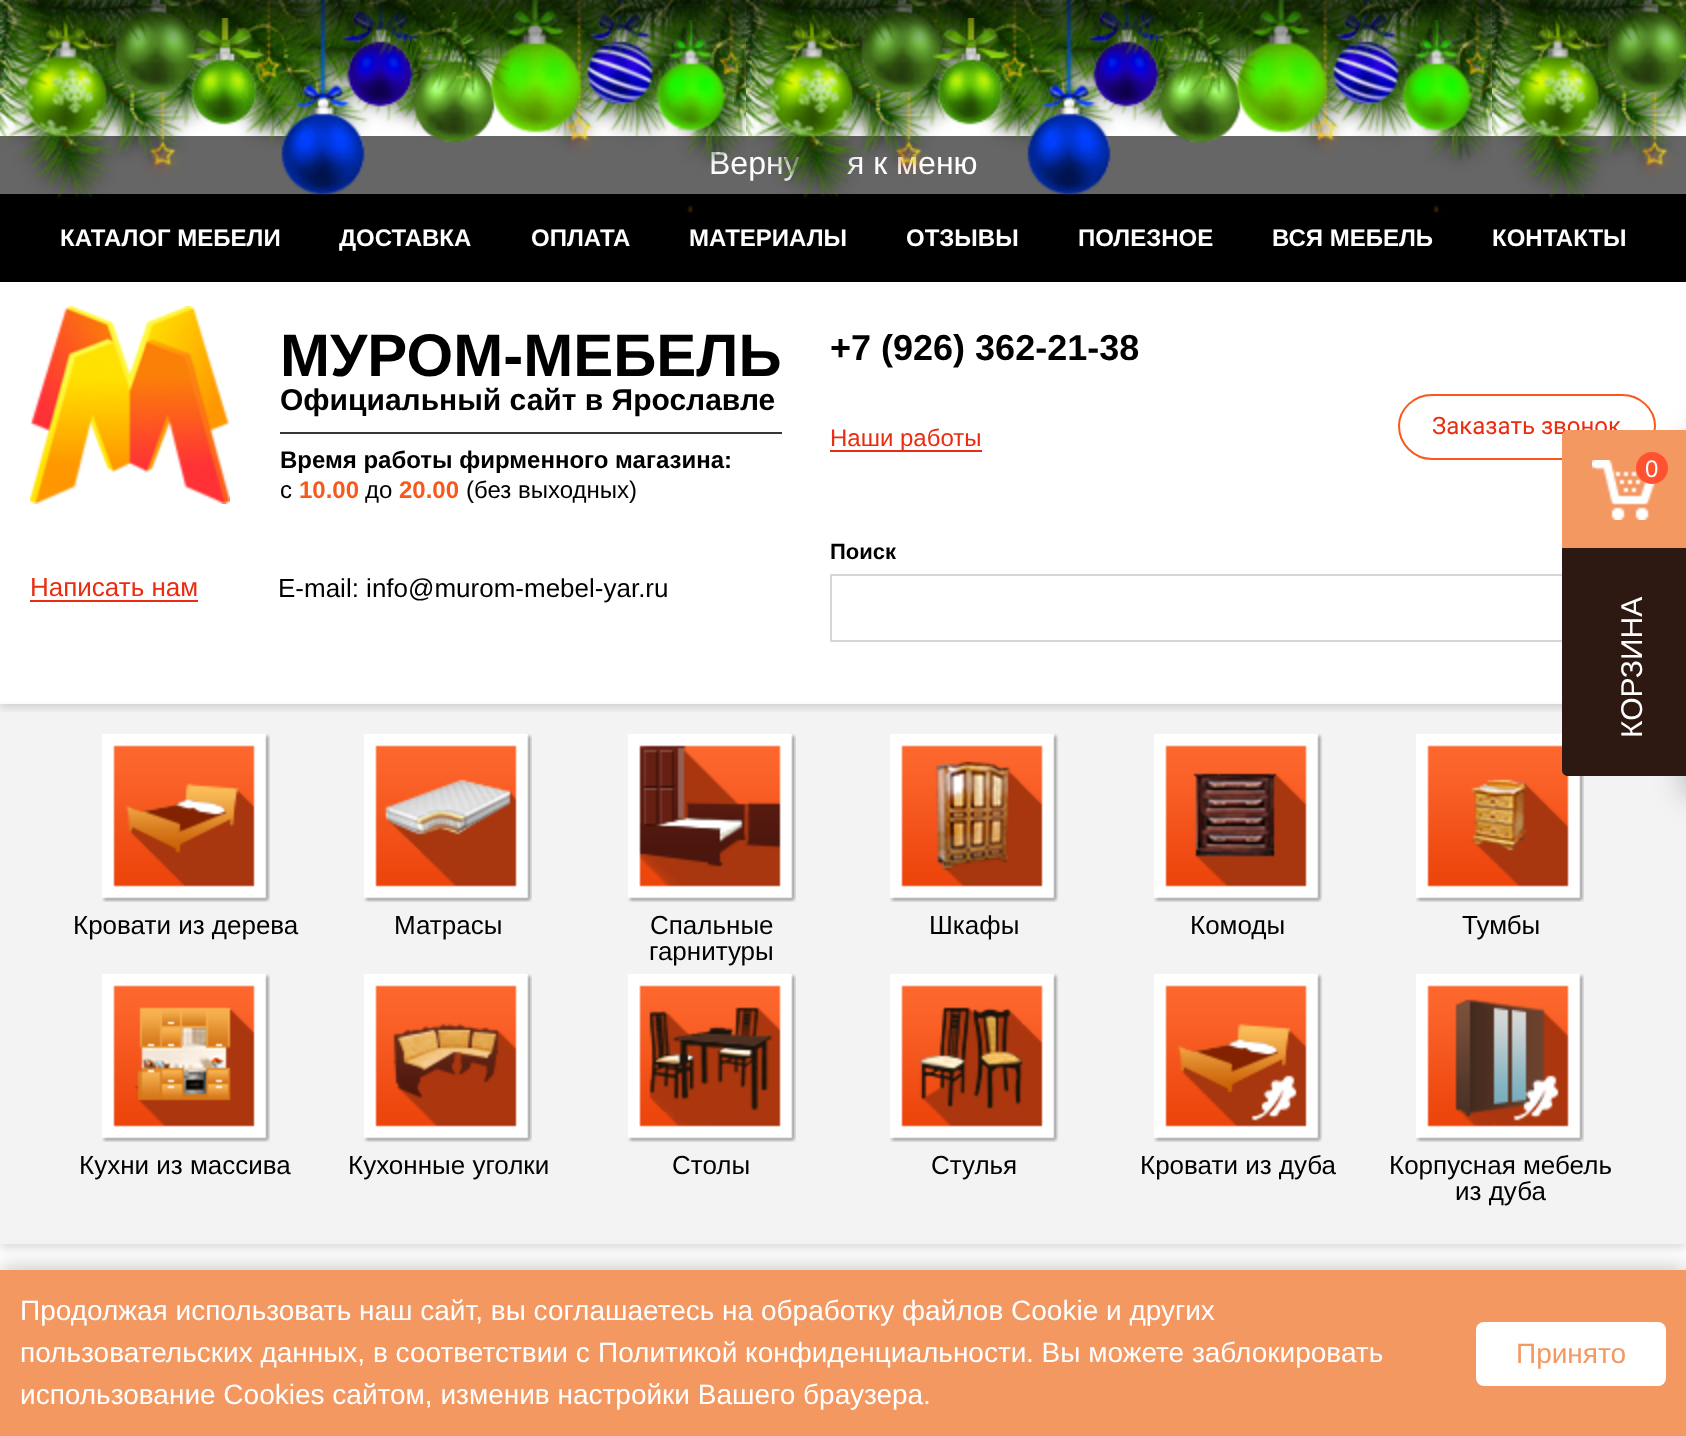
<svg xmlns="http://www.w3.org/2000/svg" width="1686" height="1436">
<defs>
<clipPath id="clip1"><rect x="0" y="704" width="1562" height="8"/></clipPath>
</defs>
<rect width="100%" height="100%" fill="#fff"/>
<rect y="136" width="1686" height="58" fill="#666"/>
<text x="709" y="174" style="font-family:Liberation Sans;font-size:32px;fill:#fff">Верну</text>
<text x="847" y="174" style="font-family:Liberation Sans;font-size:32px;fill:#fff">я к меню</text>
<rect y="194" width="1686" height="88" fill="#000"/>
<image x="0" y="0" width="1686" height="213" href="media/1.png"/>
<image x="23" y="0" width="84" height="137" href="media/3.png"/>
<image x="0" y="0" width="50" height="142" href="media/2.png"/>
<image x="115" y="0" width="82" height="93" href="media/5.png"/>
<image x="50" y="0" width="122" height="54" href="media/4.png"/>
<image x="281" y="0" width="84" height="195" href="media/6.png"/>
<image x="341" y="0" width="80" height="107" href="media/7.png"/>
<image x="353" y="0" width="57" height="62" href="media/8.png"/>
<image x="413" y="12" width="82" height="131" href="media/13.png"/>
<image x="489" y="0" width="94" height="133" href="media/10.png"/>
<image x="410" y="0" width="100" height="100" href="media/9.png"/>
<image x="587" y="0" width="66" height="105" href="media/14.png"/>
<image x="655" y="20" width="72" height="111" href="media/15.png"/>
<image x="578" y="0" width="156" height="56" href="media/11.png"/>
<image x="186" y="18" width="79" height="107" href="media/12.png"/>
<image x="734" y="0" width="12" height="138" href="media/16.png"/>
<image x="769" y="0" width="84" height="137" href="media/3.png"/>
<image x="746" y="0" width="50" height="142" href="media/2.png"/>
<image x="861" y="0" width="82" height="93" href="media/5.png"/>
<image x="796" y="0" width="122" height="54" href="media/4.png"/>
<image x="1027" y="0" width="84" height="195" href="media/6.png"/>
<image x="1087" y="0" width="80" height="107" href="media/7.png"/>
<image x="1099" y="0" width="57" height="62" href="media/8.png"/>
<image x="1159" y="12" width="82" height="131" href="media/13.png"/>
<image x="1235" y="0" width="94" height="133" href="media/10.png"/>
<image x="1156" y="0" width="100" height="100" href="media/9.png"/>
<image x="1333" y="0" width="66" height="105" href="media/14.png"/>
<image x="1401" y="20" width="72" height="111" href="media/15.png"/>
<image x="1324" y="0" width="156" height="56" href="media/11.png"/>
<image x="932" y="18" width="79" height="107" href="media/12.png"/>
<image x="1480" y="0" width="12" height="138" href="media/16.png"/>
<image x="1515" y="0" width="84" height="137" href="media/3.png"/>
<image x="1492" y="0" width="50" height="142" href="media/2.png"/>
<image x="1607" y="0" width="79" height="93" href="media/17.png"/>
<image x="1542" y="0" width="122" height="54" href="media/4.png"/>
<image x="1678" y="53" width="8" height="52" href="media/18.png"/>
<rect y="-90" width="1686" height="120" fill="#000000bf" filter="blur(30px)"/>
<text x="60" y="246" style="font-family:Liberation Sans;font-size:24px;font-weight:bold;fill:#fff">КАТАЛОГ МЕБЕЛИ</text>
<text x="339" y="246" style="font-family:Liberation Sans;font-size:24px;font-weight:bold;fill:#fff">ДОСТАВКА</text>
<text x="531" y="246" style="font-family:Liberation Sans;font-size:24px;font-weight:bold;fill:#fff">ОПЛАТА</text>
<text x="689" y="246" style="font-family:Liberation Sans;font-size:24px;font-weight:bold;fill:#fff">МАТЕРИАЛЫ</text>
<text x="906" y="246" style="font-family:Liberation Sans;font-size:24px;font-weight:bold;fill:#fff">ОТЗЫВЫ</text>
<text x="1078" y="246" style="font-family:Liberation Sans;font-size:24px;font-weight:bold;fill:#fff">ПОЛЕЗНОЕ</text>
<text x="1272" y="246" style="font-family:Liberation Sans;font-size:24px;font-weight:bold;fill:#fff">ВСЯ МЕБЕЛЬ</text>
<text x="1492" y="246" style="font-family:Liberation Sans;font-size:24px;font-weight:bold;fill:#fff">КОНТАКТЫ</text>
<rect y="708" width="1686" height="540" fill="#00000024" filter="blur(4px)"/>
<rect y="704" width="1686" height="540" fill="#f3f3f3"/>
<g clip-path="url(#clip1)">
<rect y="286" width="1686" height="422" fill="#00000024" filter="blur(4px)"/>
</g>
<text x="830" y="360" style="font-family:Liberation Sans;font-size:36px;font-weight:bold;fill:#000">+7 (926) 362-21-38</text>
<path d="M1432 395h190c18 0 33 14 33 31c0 18-15 33-33 33h-190c-18 0-33-15-33-33c0-17 15-31 33-31z" fill="none" stroke="#f8591b" stroke-width="2"/>
<text x="1432" y="434" style="font-family:Roboto;font-size:24px;fill:#ea2c11">Заказать звонок</text>
<rect x="830" y="450" width="152" height="2" fill="#ea2c11"/>
<text x="830" y="446" style="font-family:Liberation Sans;font-size:24px;fill:#ea2c11">Наши работы</text>
<text x="830" y="559" style="font-family:Liberation Sans;font-size:22px;font-weight:bold;fill:#000">Поиск</text>
<rect x="831" y="575" width="824" height="66" fill="none" stroke="#d6d6d6" stroke-width="2"/>
<rect x="30" y="600" width="168" height="2" fill="#ea2c11"/>
<text x="30" y="596" style="font-family:Liberation Sans;font-size:26px;fill:#ea2c11">Написать нам</text>
<text x="278" y="597" style="font-family:Liberation Sans;font-size:26px;fill:#000">E-mail: info@murom-mebel-yar.ru</text>
<image x="30" y="306" width="200" height="198" href="media/19.png"/>
<text x="280" y="376" style="font-family:Liberation Sans;font-size:60px;font-weight:bold;fill:#000">МУРОМ-МЕБЕЛЬ</text>
<rect x="280" y="432" width="502" height="2" fill="#363636"/>
<text x="280" y="410" style="font-family:Liberation Sans;font-size:30px;font-weight:bold;fill:#000">Официальный сайт в Ярославле</text>
<text x="280" y="468" style="font-family:Liberation Sans;font-size:24px;font-weight:bold;fill:#000">Время работы фирменного магазина:</text>
<text x="280" y="498" style="font-family:Liberation Sans;font-size:24px;fill:#000">с</text>
<text x="299" y="498" style="font-family:Liberation Sans;font-size:24px;font-weight:bold;fill:#f8591b">10.00</text>
<text x="365" y="498" style="font-family:Liberation Sans;font-size:24px;fill:#000">до</text>
<text x="399" y="498" style="font-family:Liberation Sans;font-size:24px;font-weight:bold;fill:#f8591b">20.00</text>
<text x="466" y="498" style="font-family:Liberation Sans;font-size:24px;fill:#000">(без выходных)</text>
<image x="102" y="734" width="168" height="168" href="media/20.png"/>
<text x="73" y="934" style="font-family:Liberation Sans;font-size:26px;fill:#000">Кровати из дерева</text>
<image x="364" y="734" width="168" height="168" href="media/21.png"/>
<text x="394" y="934" style="font-family:Liberation Sans;font-size:26px;fill:#000">Матрасы</text>
<image x="628" y="734" width="168" height="168" href="media/22.png"/>
<text x="650" y="934" style="font-family:Liberation Sans;font-size:26px;fill:#000">Спальные</text>
<text x="649" y="960" style="font-family:Liberation Sans;font-size:26px;fill:#000">гарнитуры</text>
<image x="890" y="734" width="168" height="168" href="media/23.png"/>
<text x="929" y="934" style="font-family:Liberation Sans;font-size:26px;fill:#000">Шкафы</text>
<image x="1154" y="734" width="168" height="168" href="media/24.png"/>
<text x="1190" y="934" style="font-family:Liberation Sans;font-size:26px;fill:#000">Комоды</text>
<image x="1416" y="734" width="168" height="168" href="media/25.png"/>
<text x="1462" y="934" style="font-family:Liberation Sans;font-size:26px;fill:#000">Тумбы</text>
<image x="102" y="974" width="168" height="168" href="media/26.png"/>
<text x="79" y="1174" style="font-family:Liberation Sans;font-size:26px;fill:#000">Кухни из массива</text>
<image x="364" y="974" width="168" height="168" href="media/27.png"/>
<text x="348" y="1174" style="font-family:Liberation Sans;font-size:26px;fill:#000">Кухонные уголки</text>
<image x="628" y="974" width="168" height="168" href="media/28.png"/>
<text x="672" y="1174" style="font-family:Liberation Sans;font-size:26px;fill:#000">Столы</text>
<image x="890" y="974" width="168" height="168" href="media/29.png"/>
<text x="931" y="1174" style="font-family:Liberation Sans;font-size:26px;fill:#000">Стулья</text>
<image x="1154" y="974" width="168" height="168" href="media/30.png"/>
<text x="1140" y="1174" style="font-family:Liberation Sans;font-size:26px;fill:#000">Кровати из дуба</text>
<image x="1416" y="974" width="168" height="168" href="media/31.png"/>
<text x="1389" y="1174" style="font-family:Liberation Sans;font-size:26px;fill:#000">Корпусная мебель</text>
<text x="1455" y="1200" style="font-family:Liberation Sans;font-size:26px;fill:#000">из дуба</text>
<rect x="1686" y="438" width="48" height="356" fill="#0000004a" filter="blur(16px)"/>
<path d="M1568 430h118v118h-124v-112c0-3.5 2.5-6 6-6z" fill="#f49862"/>
<image x="1592" y="460" width="64" height="60" href="media/32.png"/>
<circle cx="1652" cy="468" r="16" fill="#ff5231"/>
<text x="1645" y="477" style="font-family:Liberation Sans;font-size:24px;fill:#fff">0</text>
<path d="M1562 548h124v228h-118c-3.5 0-6-2.5-6-6z" fill="#2d1912"/>
<text x="1642" y="738" transform="rotate(-90 1642 738)" style="font-family:Liberation Sans;font-size:30px;fill:#fff">КОРЗИНА</text>
<rect y="1266" width="1686" height="166" fill="#00000033" filter="blur(10px)"/>
<rect y="1270" width="1686" height="166" fill="#f49862"/>
<text x="20" y="1320" style="font-family:Liberation Sans;font-size:28px;fill:#fff">Продолжая использовать наш сайт, вы соглашаетесь на</text>
<text x="761" y="1320" style="font-family:Liberation Sans;font-size:28px;fill:#fff">обработку файлов Сookie</text>
<text x="1106" y="1320" style="font-family:Liberation Sans;font-size:28px;fill:#fff">и других</text>
<text x="20" y="1362" style="font-family:Liberation Sans;font-size:28px;fill:#fff">пользовательских данных, в соответствии с</text>
<text x="598" y="1362" style="font-family:Liberation Sans;font-size:28px;fill:#fff">Политикой конфиденциальности</text>
<text x="1026" y="1362" style="font-family:Liberation Sans;font-size:28px;fill:#fff">. Вы можете заблокировать</text>
<text x="20" y="1404" style="font-family:Liberation Sans;font-size:28px;fill:#fff">использование Cookies сайтом, изменив настройки Вашего браузера.</text>
<rect x="1476" y="1322" width="190" height="64" rx="8" fill="#fff"/>
<text x="1516" y="1363" style="font-family:Liberation Sans;font-size:28px;fill:#f49862">Принято</text>
</svg>
